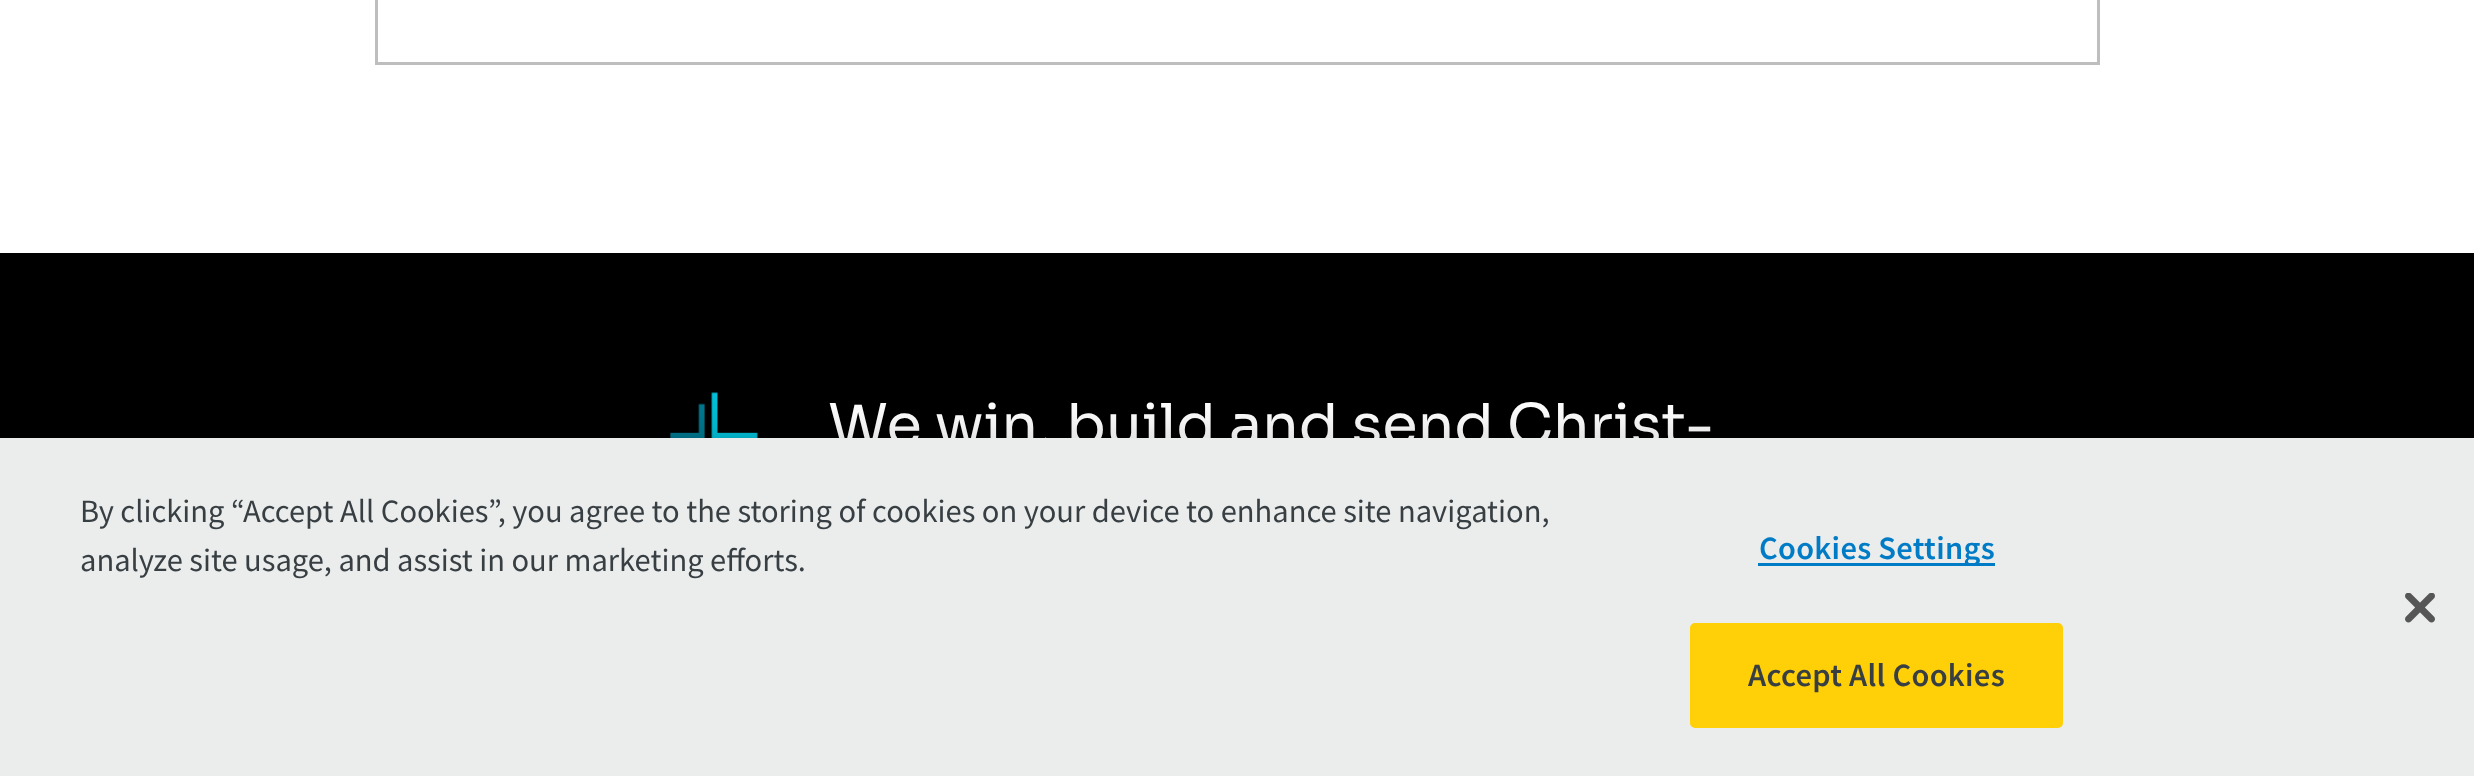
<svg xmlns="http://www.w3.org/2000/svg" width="2474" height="776">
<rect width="100%" height="100%" fill="#fff"/>
<rect x="376.5" y="-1.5" width="1722" height="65" fill="none" stroke="#bebebe" stroke-width="3"/>
<rect y="253" width="2474" height="185" fill="#000"/>
<image x="670" y="392" width="88" height="46" href="media/1.png"/>
<text x="828" y="445" style="font-family:Sora;font-size:57.5px;fill:#fff">We win, build and send Christ-</text>
<rect y="438" width="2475" height="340" fill="#00000033" filter="blur(22.5px)"/>
<rect y="438" width="2474" height="338" fill="#ebecec"/>
<text x="80" y="522" style="font-family:Source Sans Pro;font-size:32.5px;fill:#383f43">By clicking “Accept All Cookies”, you agree to the storing of cookies on your device to enhance site navigation,</text>
<text x="80" y="571" style="font-family:Source Sans Pro;font-size:32.5px;fill:#383f43">analyze site usage, and assist in our marketing efforts.</text>
<rect x="1758" y="563" width="237" height="3" fill="#007bc6"/>
<text x="1759" y="559" style="font-family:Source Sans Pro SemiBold;font-size:32.5px;font-weight:600;letter-spacing:0.3px;fill:#007bc6">Cookies Settings</text>
<rect x="1691.5" y="624.5" width="370" height="102" rx="3.5" fill="#ffcf07" stroke="#ffcf07" stroke-width="3"/>
<text x="1748" y="686" style="font-family:Source Sans Pro SemiBold;font-size:32.5px;font-weight:600;letter-spacing:0.3px;fill:#383f43">Accept All Cookies</text>
<image x="2405" y="593" width="30" height="30" href="media/2.png"/>
</svg>
